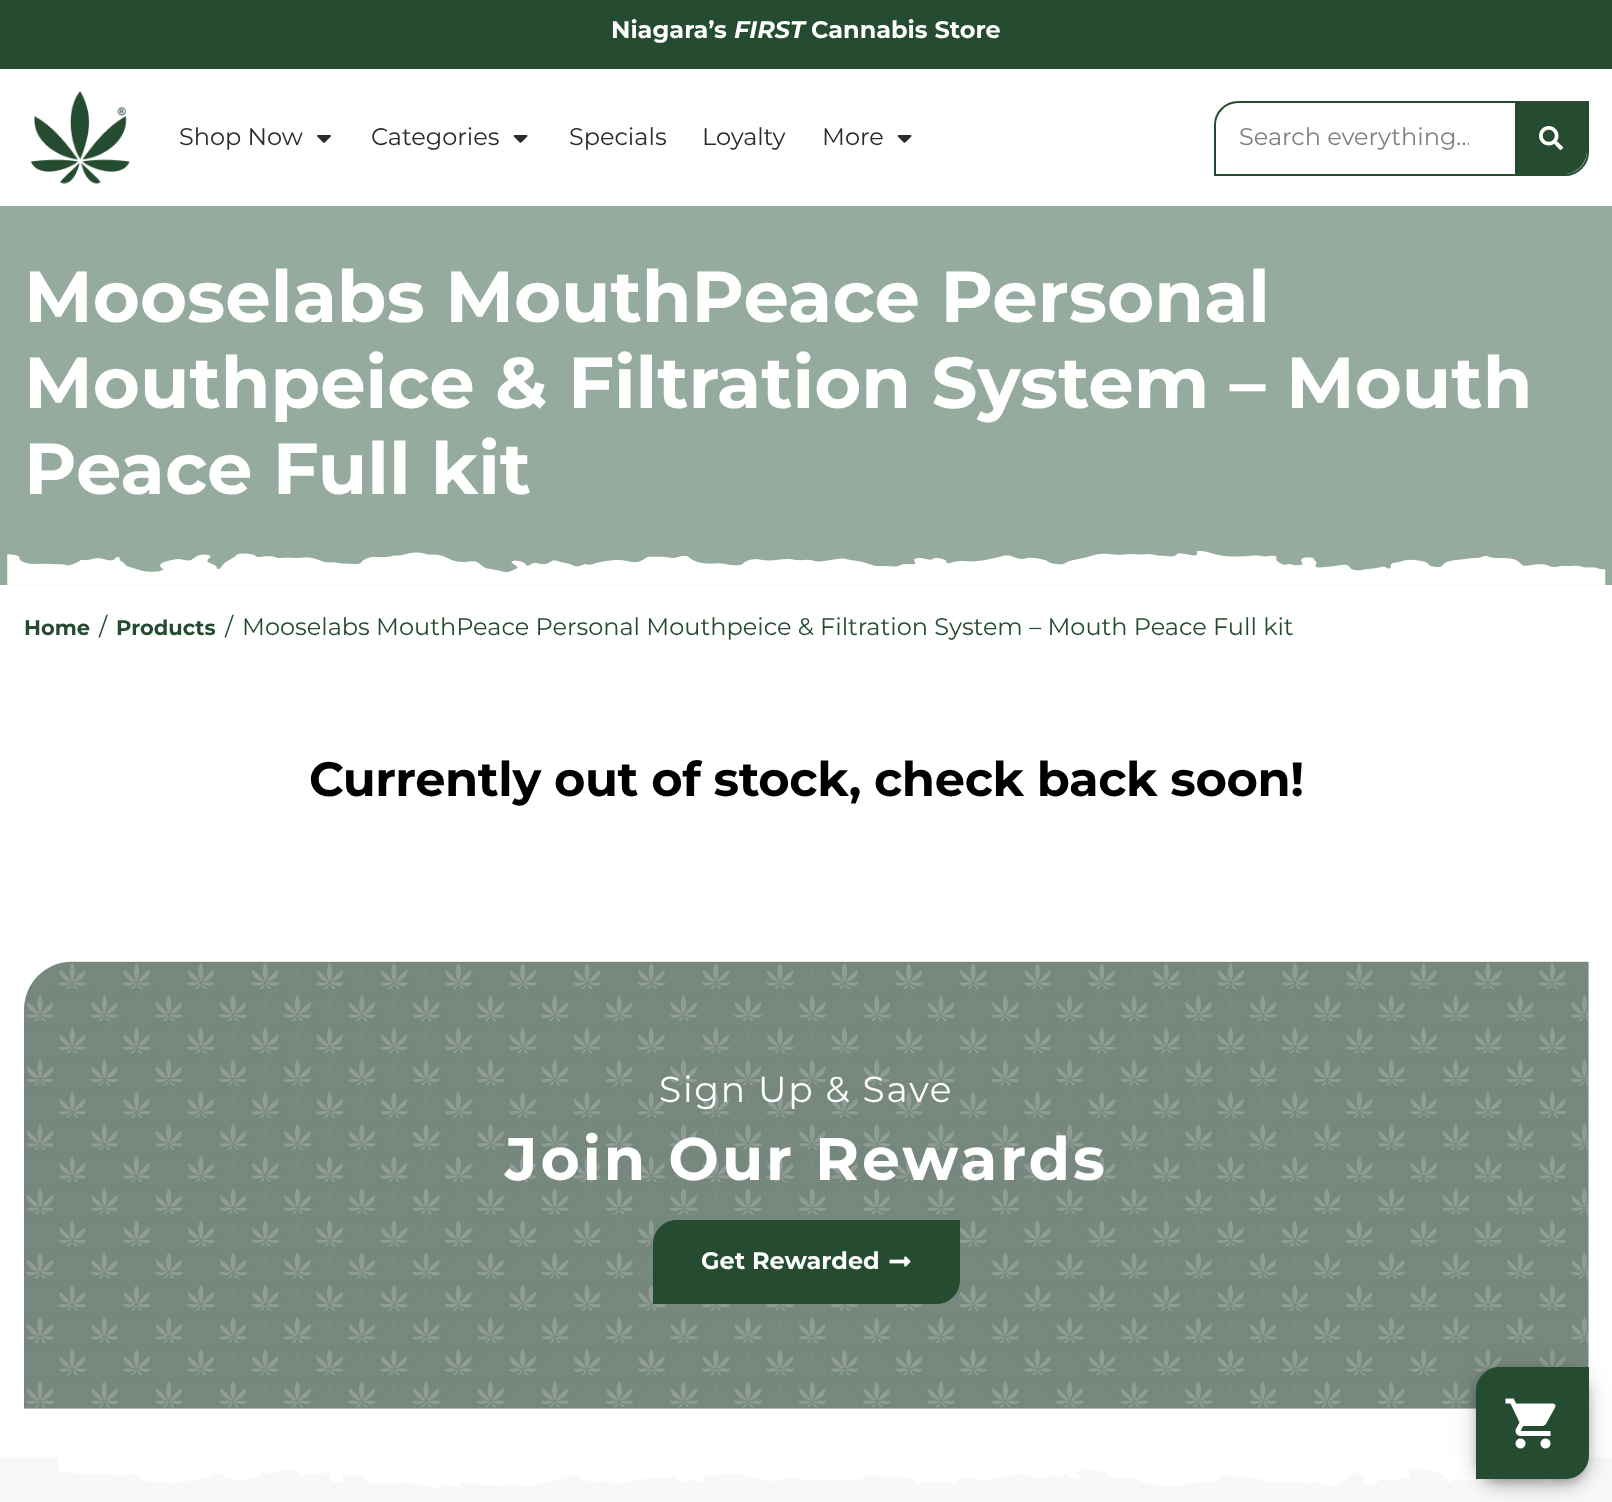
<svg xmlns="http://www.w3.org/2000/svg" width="1612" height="1502">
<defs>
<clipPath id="clip1"><rect x="1239" y="123" width="230" height="29"/></clipPath>
</defs>
<rect width="100%" height="100%" fill="#fff"/>
<rect width="1612" height="69" fill="#254b30"/>
<text x="611" y="38" style="font-family:Montserrat;font-size:24px;font-weight:bold;fill:#fff">Niagara’s</text>
<text x="734" y="38" style="font-family:Montserrat;font-size:24px;font-weight:bold;font-style:italic;fill:#fff">FIRST</text>
<text x="811" y="38" style="font-family:Montserrat;font-size:24px;font-weight:bold;fill:#fff">Cannabis Store</text>
<image x="30" y="91" width="100" height="93" href="media/1.png"/>
<text x="179" y="145" style="font-family:Montserrat;font-size:24px;fill:#2b2b2b">Shop Now</text>
<image x="317" y="135" width="14" height="8" href="media/2.png"/>
<text x="371" y="145" style="font-family:Montserrat;font-size:24px;fill:#2b2b2b">Categories</text>
<image x="513" y="135" width="15" height="8" href="media/3.png"/>
<text x="569" y="145" style="font-family:Montserrat;font-size:24px;fill:#2b2b2b">Specials</text>
<text x="702" y="145" style="font-family:Montserrat;font-size:24px;fill:#2b2b2b">Loyalty</text>
<text x="822" y="145" style="font-family:Montserrat;font-size:24px;fill:#2b2b2b">More</text>
<image x="897" y="135" width="15" height="8" href="media/3.png"/>
<path d="M1238 102h350v50c0 12.5-10.5 23-23 23h-350v-50c0-12.5 10.5-23 23-23z" fill="none" stroke="#254b30" stroke-width="2"/>
<g clip-path="url(#clip1)">
<text x="1239" y="145" style="font-family:Montserrat;font-size:24px;fill:#808080">Search everything...</text>
</g>
<path d="M1515 102h72v49c0 12.5-10.5 23-23 23h-49z" fill="#254b30"/>
<image x="1539" y="126" width="24" height="24" href="media/4.png"/>
<rect y="206" width="1612" height="379" fill="#94ab9d"/>
<image x="7" y="551" width="1599" height="34" href="media/5.png"/>
<text x="24" y="322" style="font-family:Montserrat;font-size:72px;font-weight:bold;fill:#fff">Mooselabs MouthPeace Personal</text>
<text x="24" y="408" style="font-family:Montserrat;font-size:72px;font-weight:bold;fill:#fff">Mouthpeice &amp; Filtration System – Mouth</text>
<text x="24" y="494" style="font-family:Montserrat;font-size:72px;font-weight:bold;fill:#fff">Peace Full kit</text>
<text x="24" y="635" style="font-family:Montserrat;font-size:21px;font-weight:bold;fill:#254b30">Home</text>
<text x="99" y="635" style="font-family:Montserrat;font-size:24px;fill:#254b30">/</text>
<text x="116" y="635" style="font-family:Montserrat;font-size:21px;font-weight:bold;fill:#254b30">Products</text>
<text x="225" y="635" style="font-family:Montserrat;font-size:24px;fill:#254b30">/</text>
<text x="242" y="635" style="font-family:Montserrat;font-size:24px;fill:#254b30">Mooselabs MouthPeace Personal Mouthpeice &amp; Filtration System – Mouth Peace Full kit</text>
<text x="309" y="796" style="font-family:Montserrat;font-size:48px;font-weight:bold;letter-spacing:-0.4px;fill:#000">Currently out of stock, check back soon!</text>
<image x="24" y="961" width="1565" height="448" href="media/6.png"/>
<path d="M72 962h1517v399c0 26.5-21.5 48-48 48h-1517v-399c0-26.5 21.5-48 48-48z" fill="#00000033"/>
<text x="659" y="1102" style="font-family:Montserrat;font-size:36px;letter-spacing:1.75px;fill:#fff">Sign Up &amp; Save</text>
<text x="505" y="1180" style="font-family:Montserrat;font-size:60px;font-weight:bold;letter-spacing:3px;fill:#fff">Join Our Rewards</text>
<path d="M677 1220h283v60c0 13.5-10.5 24-24 24h-283v-60c0-13.5 10.5-24 24-24z" fill="#254b30"/>
<text x="701" y="1269" style="font-family:Montserrat;font-size:24px;font-weight:bold;fill:#fff">Get Rewarded</text>
<image x="889" y="1256" width="22" height="11" href="media/7.png"/>
<rect y="1457" width="1612" height="45" fill="#f8f8f8"/>
<image x="59" y="1457" width="1494" height="32" href="media/9.png"/>
<rect x="1476" y="1368" width="113" height="113" rx="24" fill="#0000001f" filter="blur(13.5px)"/>
<rect x="1476" y="1376" width="113" height="112" rx="24" fill="#00000024" filter="blur(7.5px)"/>
<rect x="1478" y="1373" width="109" height="109" rx="23" fill="#00000033" filter="blur(4px)"/>
<path d="M1500 1367h89v88c0 13.5-10.5 24-24 24h-89v-88c0-13.5 10.5-24 24-24z" fill="#254b30"/>
<image x="1505" y="1398" width="51" height="51" href="media/8.png"/>
</svg>
